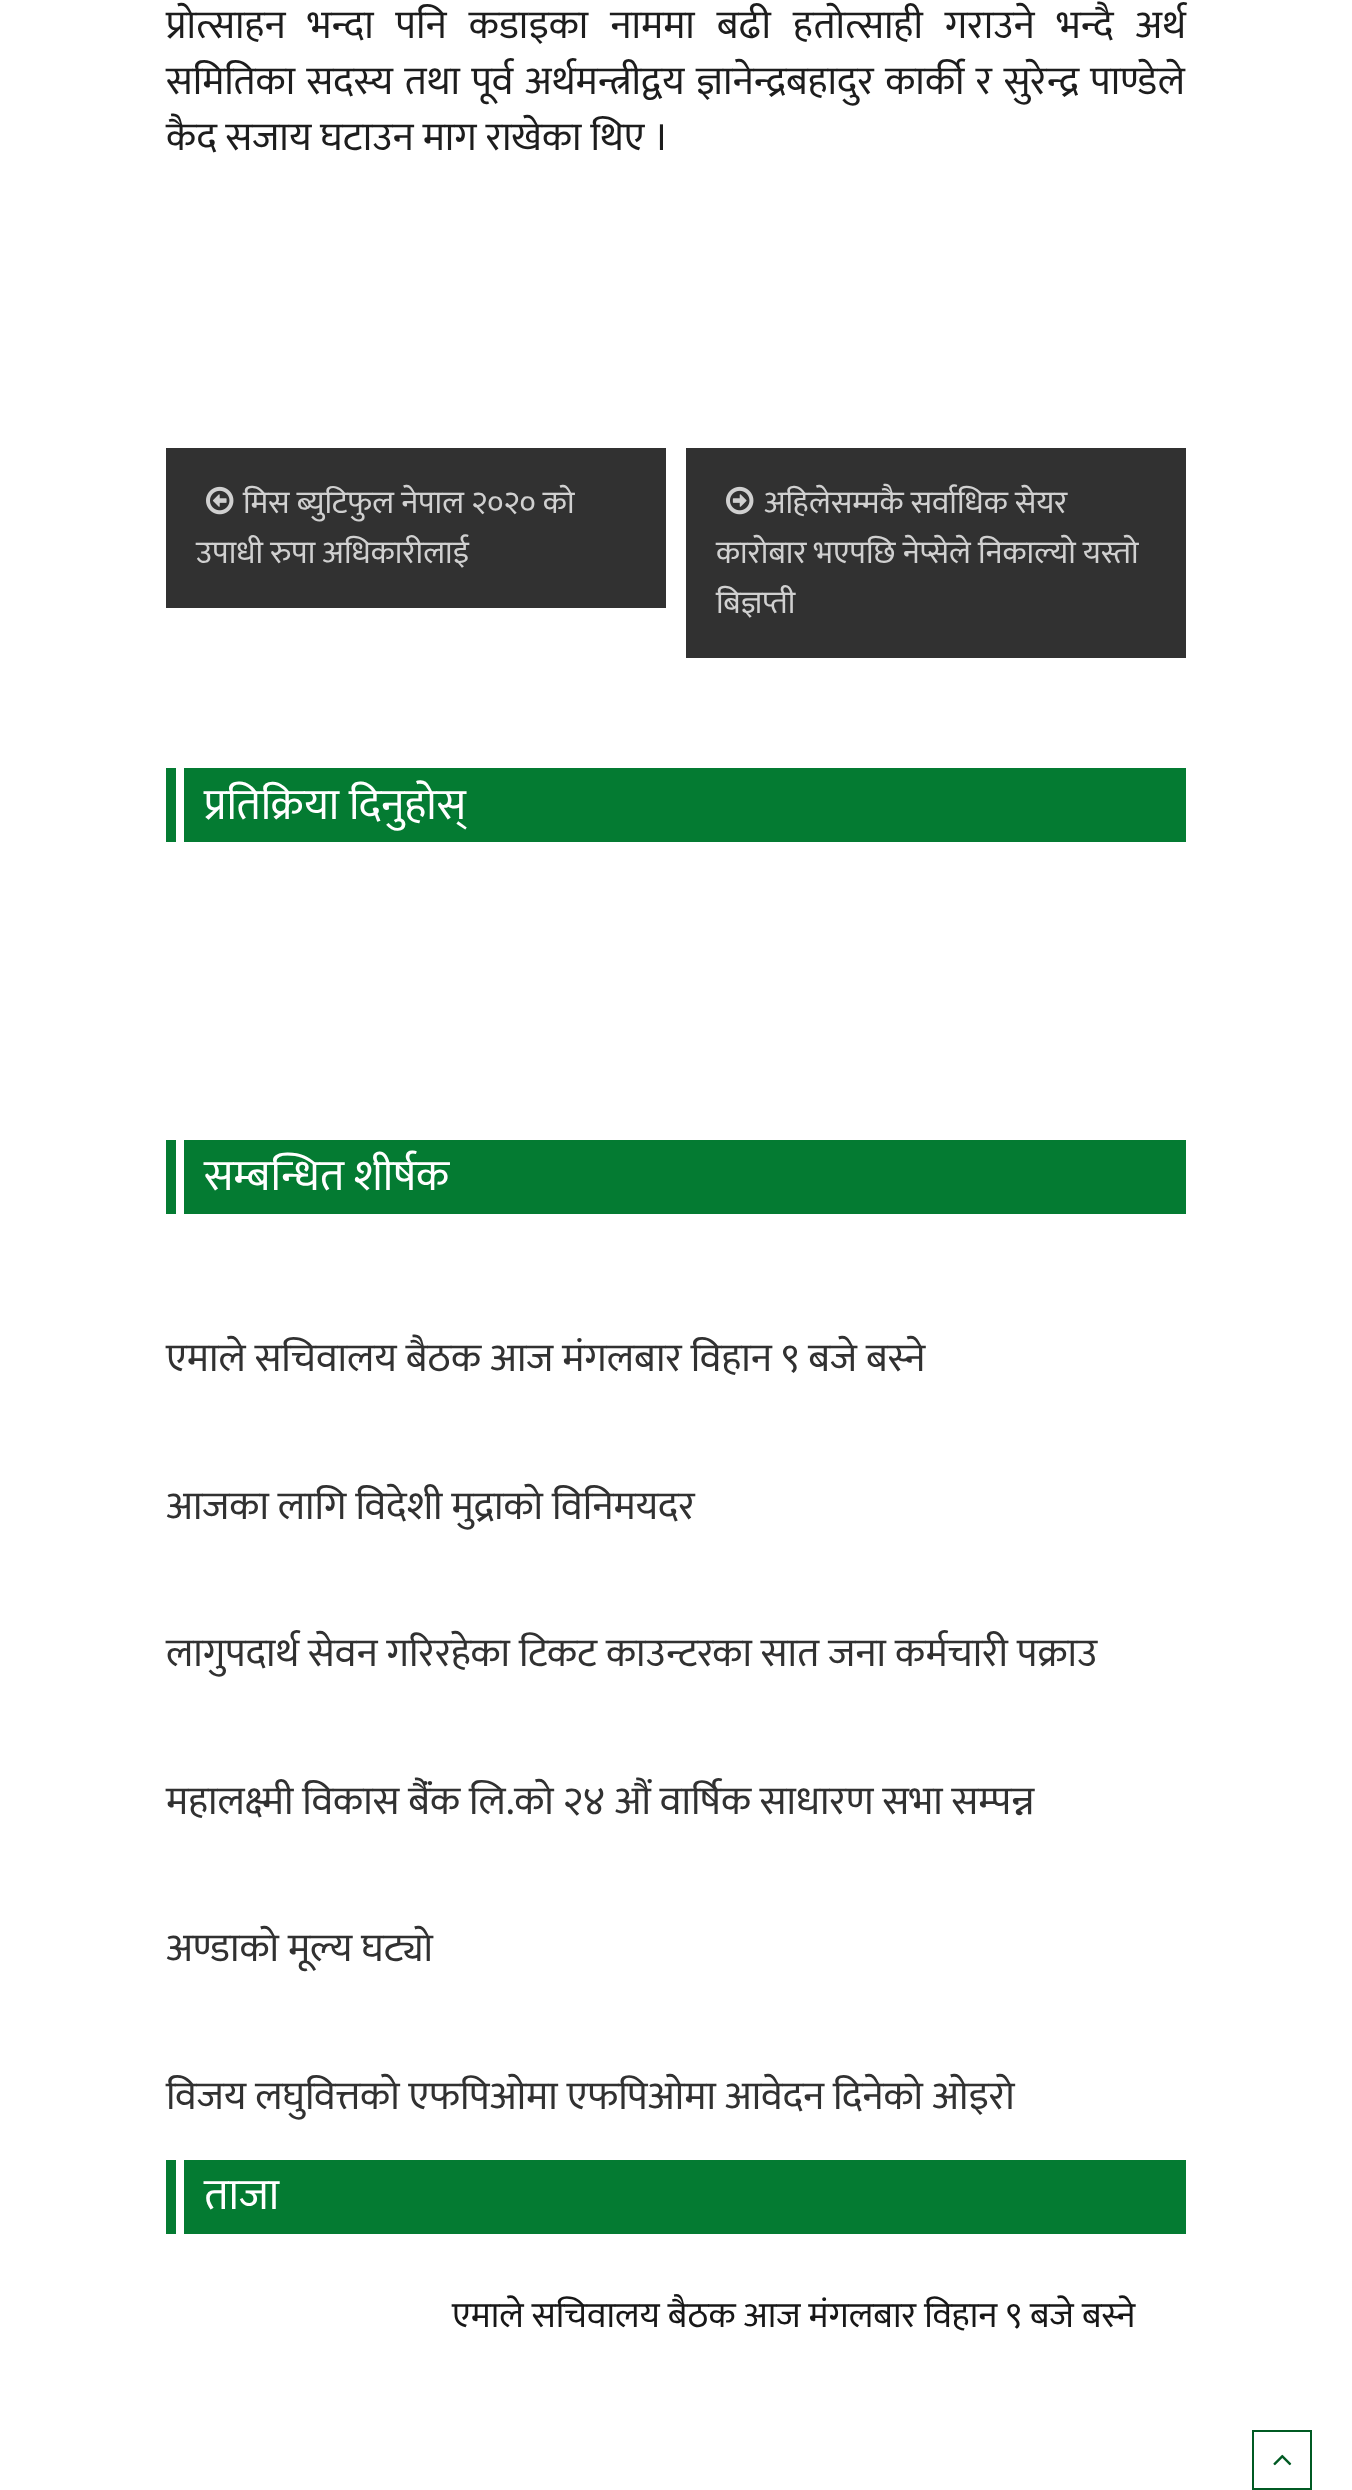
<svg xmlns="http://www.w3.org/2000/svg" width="1352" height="2490">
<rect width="100%" height="100%" fill="#fff"/>
<text x="166" y="38" word-spacing="13" style="font-family:Ek Mukta;font-size:40px;fill:#1d1d1d">प्रोत्साहन भन्दा पनि कडाइका नाममा बढी हतोत्साही गराउने भन्दै अर्थ</text>
<text x="166" y="94" word-spacing="2.5" style="font-family:Ek Mukta;font-size:40px;fill:#1d1d1d">समितिका सदस्य तथा पूर्व अर्थमन्त्रीद्वय ज्ञानेन्द्रबहादुर कार्की र सुरेन्द्र पाण्डेले</text>
<text x="166" y="150" style="font-family:Ek Mukta;font-size:40px;fill:#1d1d1d">कैद सजाय घटाउन माग राखेका थिए ।</text>
<rect x="166" y="448" width="500" height="160" fill="#313131"/>
<image x="206" y="486" width="28" height="29" href="media/1.png"/>
<text x="243" y="513" style="font-family:Ek Mukta;font-size:32px;fill:#d0d0d0">मिस ब्युटिफुल नेपाल २०२० को</text>
<text x="196" y="563" style="font-family:Ek Mukta;font-size:32px;fill:#d0d0d0">उपाधी रुपा अधिकारीलाई</text>
<rect x="686" y="448" width="500" height="210" fill="#313131"/>
<image x="726" y="486" width="28" height="29" href="media/2.png"/>
<text x="764" y="513" style="font-family:Ek Mukta;font-size:32px;fill:#d0d0d0">अहिलेसम्मकै सर्वाधिक सेयर</text>
<text x="716" y="563" style="font-family:Ek Mukta;font-size:32px;fill:#d0d0d0">कारोबार भएपछि नेप्सेले निकाल्यो यस्तो</text>
<text x="716" y="613" style="font-family:Ek Mukta;font-size:32px;fill:#d0d0d0">बिज्ञप्ती</text>
<rect x="166" y="768" width="1020" height="74" fill="#047b32"/>
<text x="204" y="819" style="font-family:Ek Mukta;font-size:44px;fill:#fff">प्रतिक्रिया दिनुहोस्</text>
<rect x="176" y="768" width="8" height="74" fill="#fff"/>
<rect x="166" y="1140" width="1020" height="74" fill="#047b32"/>
<text x="204" y="1190" style="font-family:Ek Mukta;font-size:44px;fill:#fff">सम्बन्धित शीर्षक</text>
<rect x="176" y="1140" width="8" height="74" fill="#fff"/>
<text x="166" y="1371" style="font-family:Ek Mukta;font-size:40px;fill:#313131">एमाले सचिवालय बैठक आज मंगलबार विहान ९ बजे बस्ने</text>
<text x="166" y="1519" style="font-family:Ek Mukta;font-size:40px;fill:#313131">आजका लागि विदेशी मुद्राको विनिमयदर</text>
<text x="166" y="1666" style="font-family:Ek Mukta;font-size:40px;fill:#313131">लागुपदार्थ सेवन गरिरहेका टिकट काउन्टरका सात जना कर्मचारी पक्राउ</text>
<text x="166" y="1814" style="font-family:Ek Mukta;font-size:40px;fill:#313131">महालक्ष्मी विकास बैंंक लि.को २४ औं वार्षिक साधारण सभा सम्पन्न</text>
<text x="166" y="1961" style="font-family:Ek Mukta;font-size:40px;fill:#313131">अण्डाको मूल्य घट्यो</text>
<text x="166" y="2109" style="font-family:Ek Mukta;font-size:40px;fill:#313131">विजय लघुवित्तको एफपिओमा एफपिओमा आवेदन दिनेको ओइरो</text>
<rect x="166" y="2160" width="1020" height="74" fill="#047b32"/>
<text x="204" y="2209" style="font-family:Ek Mukta;font-size:44px;fill:#fff">ताजा</text>
<rect x="176" y="2160" width="8" height="74" fill="#fff"/>
<text x="452" y="2327" style="font-family:Ek Mukta;font-size:36px;fill:#171717">एमाले सचिवालय बैठक आज मंगलबार विहान ९ बजे बस्ने</text>
<rect x="1253" y="2431" width="58" height="58" fill="none" stroke="#005a23" stroke-width="2"/>
<image x="1273" y="2454" width="19" height="12" href="media/3.png"/>
</svg>
